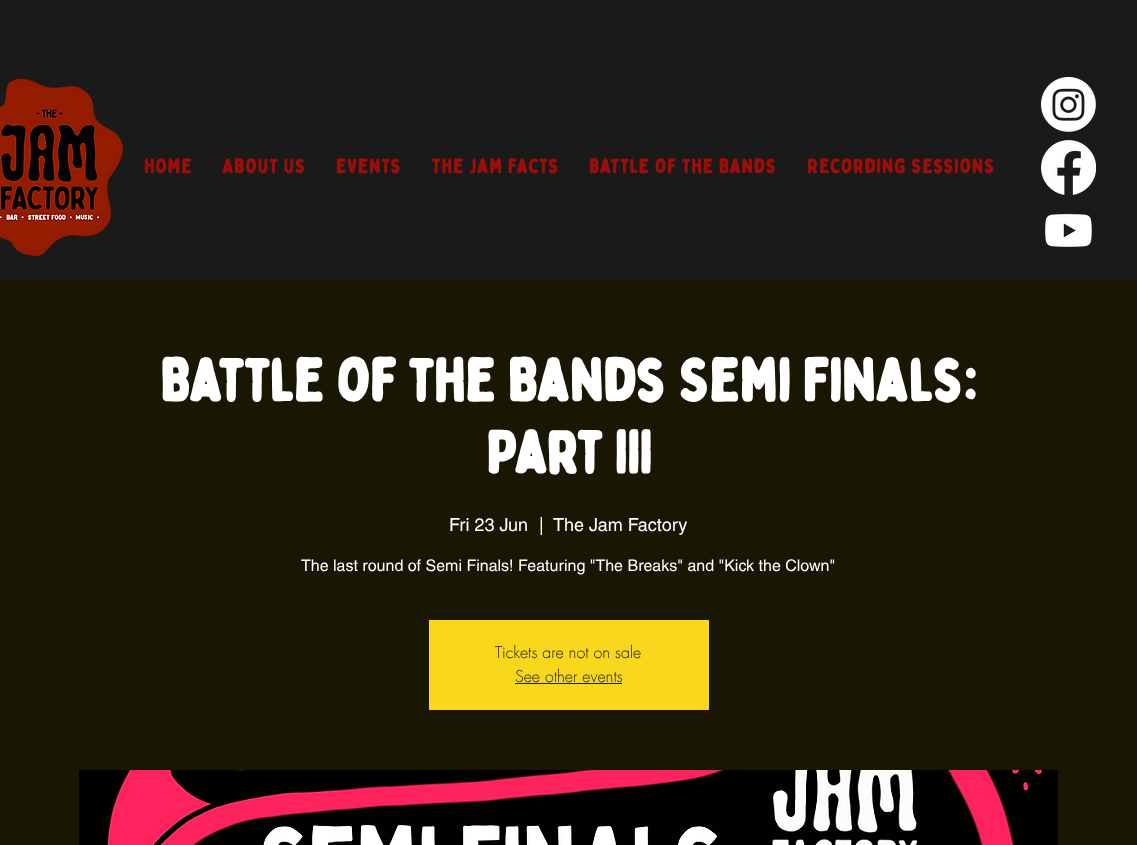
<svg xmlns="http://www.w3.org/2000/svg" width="1137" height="845">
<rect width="100%" height="100%" fill="#1a1a1a"/>
<image x="0" y="78" width="123" height="179" href="media/1.png"/>
<text x="144" y="173" style="font-family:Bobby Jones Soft;font-size:20px;font-weight:bold;letter-spacing:1px;fill:#9b0e0a">Home</text>
<text x="222" y="173" style="font-family:Bobby Jones Soft;font-size:20px;font-weight:bold;letter-spacing:1px;fill:#9b0e0a">About Us</text>
<text x="336" y="173" style="font-family:Bobby Jones Soft;font-size:20px;font-weight:bold;letter-spacing:1px;fill:#9b0e0a">Events</text>
<text x="432" y="173" style="font-family:Bobby Jones Soft;font-size:20px;font-weight:bold;letter-spacing:1px;fill:#9b0e0a">The Jam Facts</text>
<text x="589" y="173" style="font-family:Bobby Jones Soft;font-size:20px;font-weight:bold;letter-spacing:1px;fill:#9b0e0a">Battle of the Bands</text>
<text x="807" y="173" style="font-family:Bobby Jones Soft;font-size:20px;font-weight:bold;letter-spacing:1px;fill:#9b0e0a">Recording Sessions</text>
<image x="1041" y="77" width="55" height="55" href="media/2.png"/>
<image x="1041" y="140" width="55" height="55" href="media/3.png"/>
<image x="1045" y="213" width="47" height="34" href="media/4.png"/>
<rect y="281" width="1137" height="564" fill="#191603"/>
<text x="160" y="401" style="font-family:Bobby Jones Soft;font-size:60px;font-weight:bold;fill:#fff">Battle of the Bands Semi Finals:</text>
<text x="486" y="473" style="font-family:Bobby Jones Soft;font-size:60px;font-weight:bold;fill:#fff">Part III</text>
<text x="449" y="531" style="font-family:helvetica;font-size:18px;fill:#fff">Fri 23 Jun</text>
<text x="539" y="531" style="font-family:helvetica;font-size:18px;fill:#fff">|</text>
<text x="553" y="531" style="font-family:helvetica;font-size:18px;fill:#fff">The Jam Factory</text>
<text x="301" y="571" style="font-family:helvetica;font-size:16px;fill:#fff">The last round of Semi Finals! Featuring "The Breaks" and "Kick the Clown"</text>
<rect x="429" y="620" width="280" height="90" fill="#f8d71c"/>
<text x="495" y="658" style="font-family:futura;font-size:16px;font-weight:300;fill:#1a1a1a">Tickets are not on sale</text>
<text x="515" y="682" style="font-family:futura;font-size:16px;font-weight:300;fill:#1a1a1a">See other events</text>
<rect x="515" y="683" width="107" height="1" fill="#1a1a1a"/>
<image x="79" y="770" width="979" height="75" href="media/5.png"/>
</svg>
